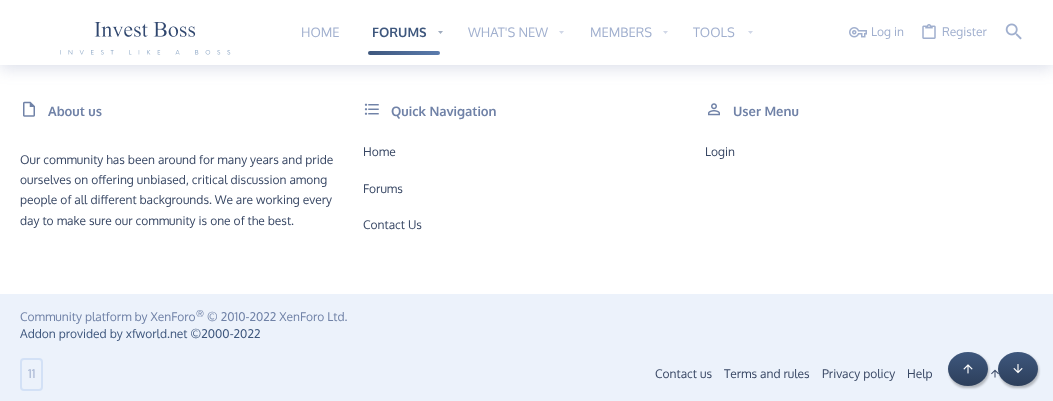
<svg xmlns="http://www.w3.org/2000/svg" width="1053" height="401">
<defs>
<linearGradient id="g1" gradientUnits="userSpaceOnUse" x1="368" y1="53" x2="440" y2="53"><stop offset="0" stop-color="#3e577d"/><stop offset="1" stop-color="#5a7bad"/></linearGradient>
<linearGradient id="g2" gradientUnits="userSpaceOnUse" x1="968" y1="352" x2="968" y2="386"><stop offset="0" stop-color="#3e577d"/><stop offset="1" stop-color="#2d3f5b"/></linearGradient>
<linearGradient id="g3" gradientUnits="userSpaceOnUse" x1="1018" y1="352" x2="1018" y2="386"><stop offset="0" stop-color="#3e577d"/><stop offset="1" stop-color="#2d3f5b"/></linearGradient>
</defs>
<rect width="100%" height="100%" fill="#ecf2fb"/>
<rect y="65" width="1053" height="229" fill="#fff"/>
<rect y="4" width="1053" height="65" fill="#586a9933" filter="blur(7.5px)"/>
<rect width="1053" height="65" fill="#fff"/>
<image x="60" y="22" width="171" height="33" href="media/1.png"/>
<text x="301" y="37" style="font-family:Oxygen;font-size:13px;fill:#a0afce">HOME</text>
<text x="372" y="37" style="font-family:Oxygen;font-size:13px;font-weight:bold;fill:#3e577d">FORUMS</text>
<path d="M438 31l2.5 3l2.5-3z" fill="#9fabbe"/>
<rect x="368" y="51" width="72" height="4" rx="2" fill="url(#g1)"/>
<text x="468" y="37" style="font-family:Oxygen;font-size:13px;fill:#a0afce">WHAT'S NEW</text>
<path d="M559 31l2.5 3l2.5-3z" fill="#d0d7e7"/>
<text x="590" y="37" style="font-family:Oxygen;font-size:13px;fill:#a0afce">MEMBERS</text>
<path d="M663 31l2.5 3l2.5-3z" fill="#d0d7e7"/>
<text x="693" y="37" style="font-family:Oxygen;font-size:13px;fill:#a0afce">TOOLS</text>
<path d="M748 31l2.5 3l2.5-3z" fill="#d0d7e7"/>
<image x="849" y="27" width="18" height="11" href="media/2.png"/>
<text x="871" y="36" style="font-family:Oxygen;font-size:12px;fill:#a0afce">Log in</text>
<image x="922" y="24" width="14" height="15" href="media/3.png"/>
<text x="942" y="36" style="font-family:Oxygen;font-size:12px;fill:#a0afce">Register</text>
<image x="1005" y="23" width="17" height="17" href="media/4.png"/>
<image x="23" y="101" width="12" height="16" href="media/5.png"/>
<text x="48" y="116" style="font-family:Oxygen;font-size:13px;font-weight:bold;fill:#7082a7">About us</text>
<text x="20" y="164" style="font-family:Oxygen;font-size:12px;fill:#384764">Our community has been around for many years and pride</text>
<text x="20" y="184" style="font-family:Oxygen;font-size:12px;fill:#384764">ourselves on offering unbiased, critical discussion among</text>
<text x="20" y="204" style="font-family:Oxygen;font-size:12px;fill:#384764">people of all different backgrounds. We are working every</text>
<text x="20" y="225" style="font-family:Oxygen;font-size:12px;fill:#384764">day to make sure our community is one of the best.</text>
<image x="364" y="103" width="15" height="12" href="media/6.png"/>
<text x="391" y="116" style="font-family:Oxygen;font-size:13px;font-weight:bold;fill:#7082a7">Quick Navigation</text>
<text x="363" y="156" style="font-family:Oxygen;font-size:12px;fill:#384764">Home</text>
<text x="363" y="193" style="font-family:Oxygen;font-size:12px;fill:#384764">Forums</text>
<text x="363" y="229" style="font-family:Oxygen;font-size:12px;fill:#384764">Contact Us</text>
<image x="708" y="103" width="12" height="13" href="media/7.png"/>
<text x="733" y="116" style="font-family:Oxygen;font-size:13px;font-weight:bold;fill:#7082a7">User Menu</text>
<text x="705" y="156" style="font-family:Oxygen;font-size:12px;fill:#384764">Login</text>
<text x="20" y="321" style="font-family:Oxygen;font-size:12px;fill:#7082a7">Community platform by XenForo</text>
<text x="196" y="317" style="font-family:Oxygen;font-size:9px;fill:#7082a7">®</text>
<text x="207" y="321" style="font-family:Oxygen;font-size:12px;fill:#7082a7">© 2010-2022 XenForo Ltd.</text>
<text x="20" y="338" style="font-family:Oxygen;font-size:12px;fill:#3e577d">Addon provided by xfworld.net ©2000-2022</text>
<rect x="21" y="359" width="21" height="31" rx="3" fill="none" stroke="#d3e1f6" stroke-width="2"/>
<text x="28" y="378" style="font-family:Oxygen;font-size:12px;fill:#a0afce">11</text>
<text x="655" y="378" style="font-family:Oxygen;font-size:12px;fill:#384764">Contact us</text>
<text x="724" y="378" style="font-family:Oxygen;font-size:12px;fill:#384764">Terms and rules</text>
<text x="822" y="378" style="font-family:Oxygen;font-size:12px;fill:#384764">Privacy policy</text>
<text x="907" y="378" style="font-family:Oxygen;font-size:12px;fill:#384764">Help</text>
<image x="991" y="369" width="8" height="9" href="media/8.png"/>
<rect x="949" y="354" width="40" height="34" rx="17" fill="#00000040" filter="blur(1px)"/>
<ellipse cx="968" cy="369" rx="20" ry="17" fill="url(#g2)"/>
<image x="963" y="364" width="10" height="10" href="media/9.png"/>
<rect x="999" y="354" width="40" height="34" rx="17" fill="#00000040" filter="blur(1px)"/>
<ellipse cx="1018" cy="369" rx="20" ry="17" fill="url(#g3)"/>
<image x="1013" y="364" width="10" height="10" href="media/10.png"/>
</svg>
